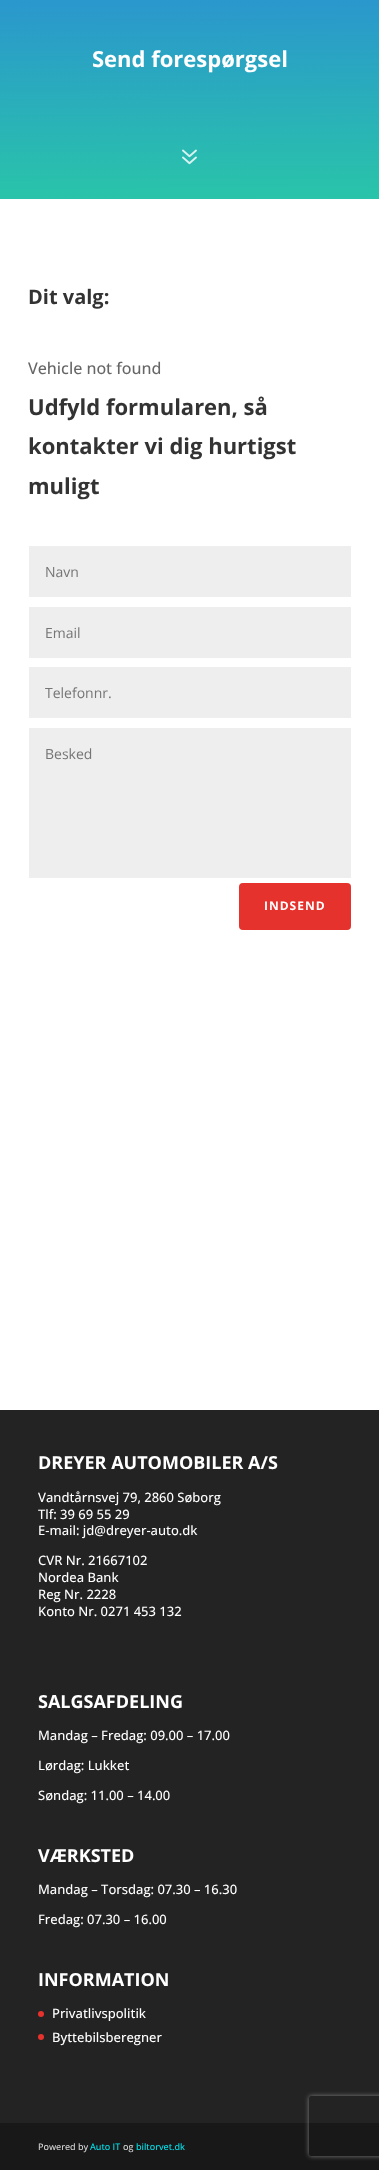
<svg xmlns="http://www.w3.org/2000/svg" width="379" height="2170">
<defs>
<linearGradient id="g1" gradientUnits="userSpaceOnUse" x1="189" y1="-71" x2="190" y2="199"><stop offset="0" stop-color="#2b87da"/><stop offset="1" stop-color="#29c4a9"/></linearGradient>
<clipPath id="clip1"><path d="M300 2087h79v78h-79zm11 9h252c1 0 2 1 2 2v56c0 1-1 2-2 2h-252c-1 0-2-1-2-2v-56c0-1 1-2 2-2z" clip-rule="evenodd"/></clipPath>
</defs>
<rect width="100%" height="100%" fill="#fff"/>
<rect width="379" height="199" fill="url(#g1)"/>
<text x="92" y="67" style="font-family:Open Sans;font-size:22px;font-weight:bold;fill:#fff">Send forespørgsel</text>
<image x="182" y="149" width="15" height="16" href="media/1.png"/>
<text x="28" y="304" style="font-family:Open Sans;font-size:20px;font-weight:bold;fill:#333">Dit valg:</text>
<text x="28" y="374" style="font-family:Open Sans;font-size:16px;font-weight:500;fill:#666">Vehicle not found</text>
<text x="28" y="415" style="font-family:Open Sans;font-size:22px;font-weight:bold;fill:#333">Udfyld formularen, så</text>
<text x="28" y="454" style="font-family:Open Sans;font-size:22px;font-weight:bold;fill:#333">kontakter vi dig hurtigst</text>
<text x="28" y="494" style="font-family:Open Sans;font-size:22px;font-weight:bold;fill:#333">muligt</text>
<rect x="29" y="546" width="322" height="51" fill="#eee"/>
<text x="45" y="577" style="font-family:Open Sans;font-size:14px;fill:#757575">Navn</text>
<rect x="29" y="607" width="322" height="51" fill="#eee"/>
<text x="45" y="638" style="font-family:Open Sans;font-size:14px;fill:#757575">Email</text>
<rect x="29" y="667" width="322" height="51" fill="#eee"/>
<text x="45" y="698" style="font-family:Open Sans;font-size:14px;fill:#757575">Telefonnr.</text>
<rect x="29" y="728" width="322" height="150" fill="#eee"/>
<text x="45" y="759" style="font-family:Open Sans;font-size:14px;fill:#757575">Besked</text>
<rect x="239" y="883" width="112" height="47" rx="4" fill="#e5322c"/>
<text x="264" y="910" style="font-family:Open Sans;font-size:12px;font-weight:bold;letter-spacing:1px;fill:#fff">INDSEND</text>
<rect y="1410" width="379" height="713" fill="#232323"/>
<text x="38" y="1469" style="font-family:Open Sans;font-size:18px;font-weight:bold;fill:#fff">DREYER AUTOMOBILER A/S</text>
<text x="38" y="1502" style="font-family:Open Sans;font-size:13px;font-weight:500;fill:#fff">Vandtårnsvej 79, 2860 Søborg</text>
<text x="38" y="1519" style="font-family:Open Sans;font-size:13px;font-weight:500;fill:#fff">Tlf: 39 69 55 29</text>
<text x="38" y="1535" style="font-family:Open Sans;font-size:13px;font-weight:500;fill:#fff">E-mail: jd@dreyer-auto.dk</text>
<text x="38" y="1565" style="font-family:Open Sans;font-size:13px;font-weight:500;fill:#fff">CVR Nr. 21667102</text>
<text x="38" y="1582" style="font-family:Open Sans;font-size:13px;font-weight:500;fill:#fff">Nordea Bank</text>
<text x="38" y="1599" style="font-family:Open Sans;font-size:13px;font-weight:500;fill:#fff">Reg Nr. 2228</text>
<text x="38" y="1616" style="font-family:Open Sans;font-size:13px;font-weight:500;fill:#fff">Konto Nr. 0271 453 132</text>
<text x="38" y="1708" style="font-family:Open Sans;font-size:18px;font-weight:bold;fill:#fff">SALGSAFDELING</text>
<text x="38" y="1740" style="font-family:Open Sans;font-size:13px;font-weight:500;fill:#fff">Mandag – Fredag: 09.00 – 17.00</text>
<text x="38" y="1770" style="font-family:Open Sans;font-size:13px;font-weight:500;fill:#fff">Lørdag: Lukket</text>
<text x="38" y="1800" style="font-family:Open Sans;font-size:13px;font-weight:500;fill:#fff">Søndag: 11.00 – 14.00</text>
<text x="38" y="1862" style="font-family:Open Sans;font-size:18px;font-weight:bold;fill:#fff">VÆRKSTED</text>
<text x="38" y="1894" style="font-family:Open Sans;font-size:13px;font-weight:500;fill:#fff">Mandag – Torsdag: 07.30 – 16.30</text>
<text x="38" y="1924" style="font-family:Open Sans;font-size:13px;font-weight:500;fill:#fff">Fredag: 07.30 – 16.00</text>
<text x="38" y="1986" style="font-family:Open Sans;font-size:18px;font-weight:bold;fill:#fff">INFORMATION</text>
<circle cx="41" cy="2014" r="3" fill="#e5322c"/>
<text x="52" y="2018" style="font-family:Open Sans;font-size:13px;font-weight:500;fill:#fff">Privatlivspolitik</text>
<circle cx="41" cy="2037" r="3" fill="#e5322c"/>
<text x="52" y="2042" style="font-family:Open Sans;font-size:13px;font-weight:500;fill:#fff">Byttebilsberegner</text>
<rect y="2123" width="379" height="47" fill="#181818"/>
<text x="38" y="2150" style="font-family:Open Sans;font-size:9px;font-weight:500;fill:#d6d6d6">Powered by</text>
<text x="90" y="2150" style="font-family:Open Sans;font-size:9px;font-weight:500;fill:#00e1ea">Auto IT</text>
<text x="123" y="2150" style="font-family:Open Sans;font-size:9px;font-weight:500;fill:#d6d6d6">og</text>
<text x="136" y="2150" style="font-family:Open Sans;font-size:9px;font-weight:500;fill:#00e1ea">biltorvet.dk</text>
<g clip-path="url(#clip1)">
<rect x="309" y="2096" width="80" height="60" rx="2" fill="#808080" filter="blur(2.5px)"/>
</g>
</svg>
